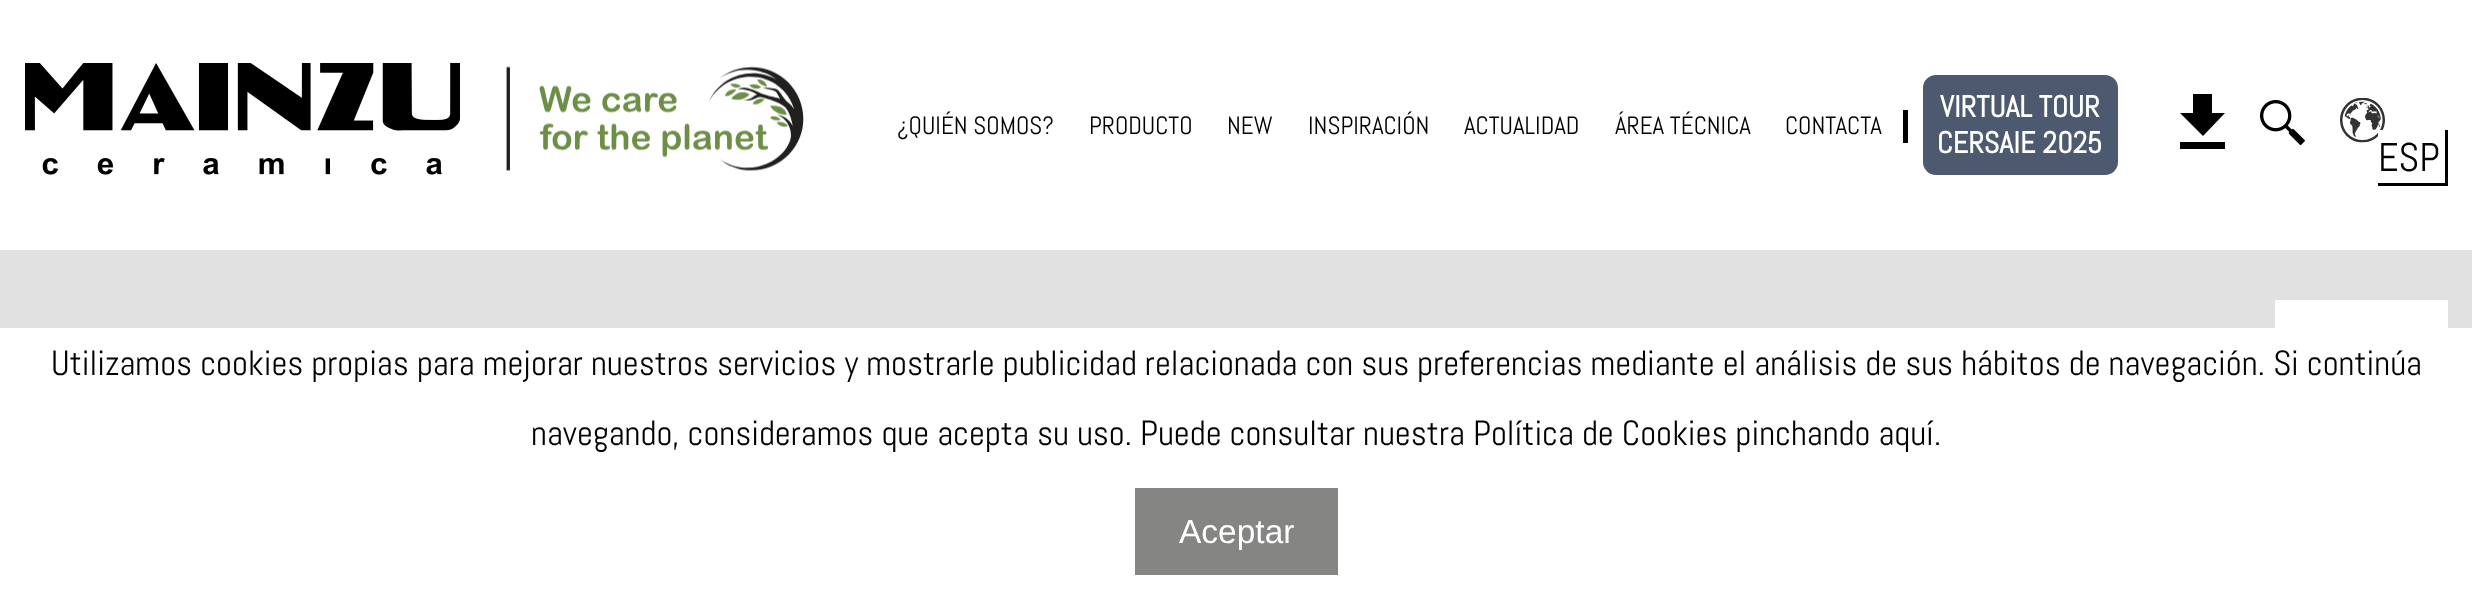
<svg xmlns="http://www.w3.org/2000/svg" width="2472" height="593">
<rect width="100%" height="100%" fill="#e2e1e1"/>
<rect width="2472" height="250" fill="#fff"/>
<image x="25" y="63" width="435" height="112" href="media/1.png"/>
<image x="506" y="66" width="298" height="105" href="media/2.png"/>
<text x="897" y="134" style="font-family:Abel;font-size:25px;fill:#000">¿QUIÉN SOMOS?</text>
<text x="1089" y="134" style="font-family:Abel;font-size:25px;fill:#000">PRODUCTO</text>
<text x="1227" y="134" style="font-family:Abel;font-size:25px;fill:#000">NEW</text>
<text x="1308" y="134" style="font-family:Abel;font-size:25px;fill:#000">INSPIRACIÓN</text>
<text x="1464" y="134" style="font-family:Abel;font-size:25px;fill:#000">ACTUALIDAD</text>
<text x="1615" y="134" style="font-family:Abel;font-size:25px;fill:#000">ÁREA TÉCNICA</text>
<rect x="1903" y="110" width="5" height="33" fill="#000"/>
<text x="1785" y="134" style="font-family:Abel;font-size:25px;fill:#000">CONTACTA</text>
<rect x="1923" y="75" width="195" height="100" rx="13" fill="#4d596f"/>
<text x="1940" y="117" style="font-family:Abel;font-size:30px;font-weight:bold;fill:#fff">VIRTUAL TOUR</text>
<text x="1937" y="153" style="font-family:Abel;font-size:30px;font-weight:bold;fill:#fff">CERSAIE 2025</text>
<path d="M2225 113h-13v-19h-19v19h-13l23 23zm-45 29v7h45v-7z" fill="#000"/>
<image x="2260" y="100" width="45" height="45" href="media/3.png"/>
<image x="2340" y="98" width="45" height="45" href="media/4.png"/>
<rect x="2378" y="130" width="5" height="7" fill="#fff"/>
<rect x="2445" y="130" width="3" height="55" fill="#000"/>
<rect x="2378" y="183" width="70" height="3" fill="#000"/>
<text x="2378" y="171" style="font-family:Abel;font-size:40px;fill:#000">ESP</text>
<rect x="2275" y="300" width="173" height="28" fill="#fff"/>
<rect y="328" width="2472" height="265" fill="#fff"/>
<text x="51" y="375" style="font-family:Abel;font-size:35px;fill:#000">Utilizamos cookies propias para mejorar nuestros servicios y mostrarle publicidad relacionada con sus preferencias mediante el análisis de sus hábitos de navegación. Si continúa</text>
<text x="531" y="445" style="font-family:Abel;font-size:35px;fill:#000">navegando, consideramos que acepta su uso. Puede consultar nuestra Política de Cookies pinchando aquí.</text>
<rect x="1135" y="488" width="203" height="87" fill="#858584"/>
<text x="1179" y="543" style="font-family:Liberation Sans;font-size:33.5px;fill:#fff">Aceptar</text>
</svg>
